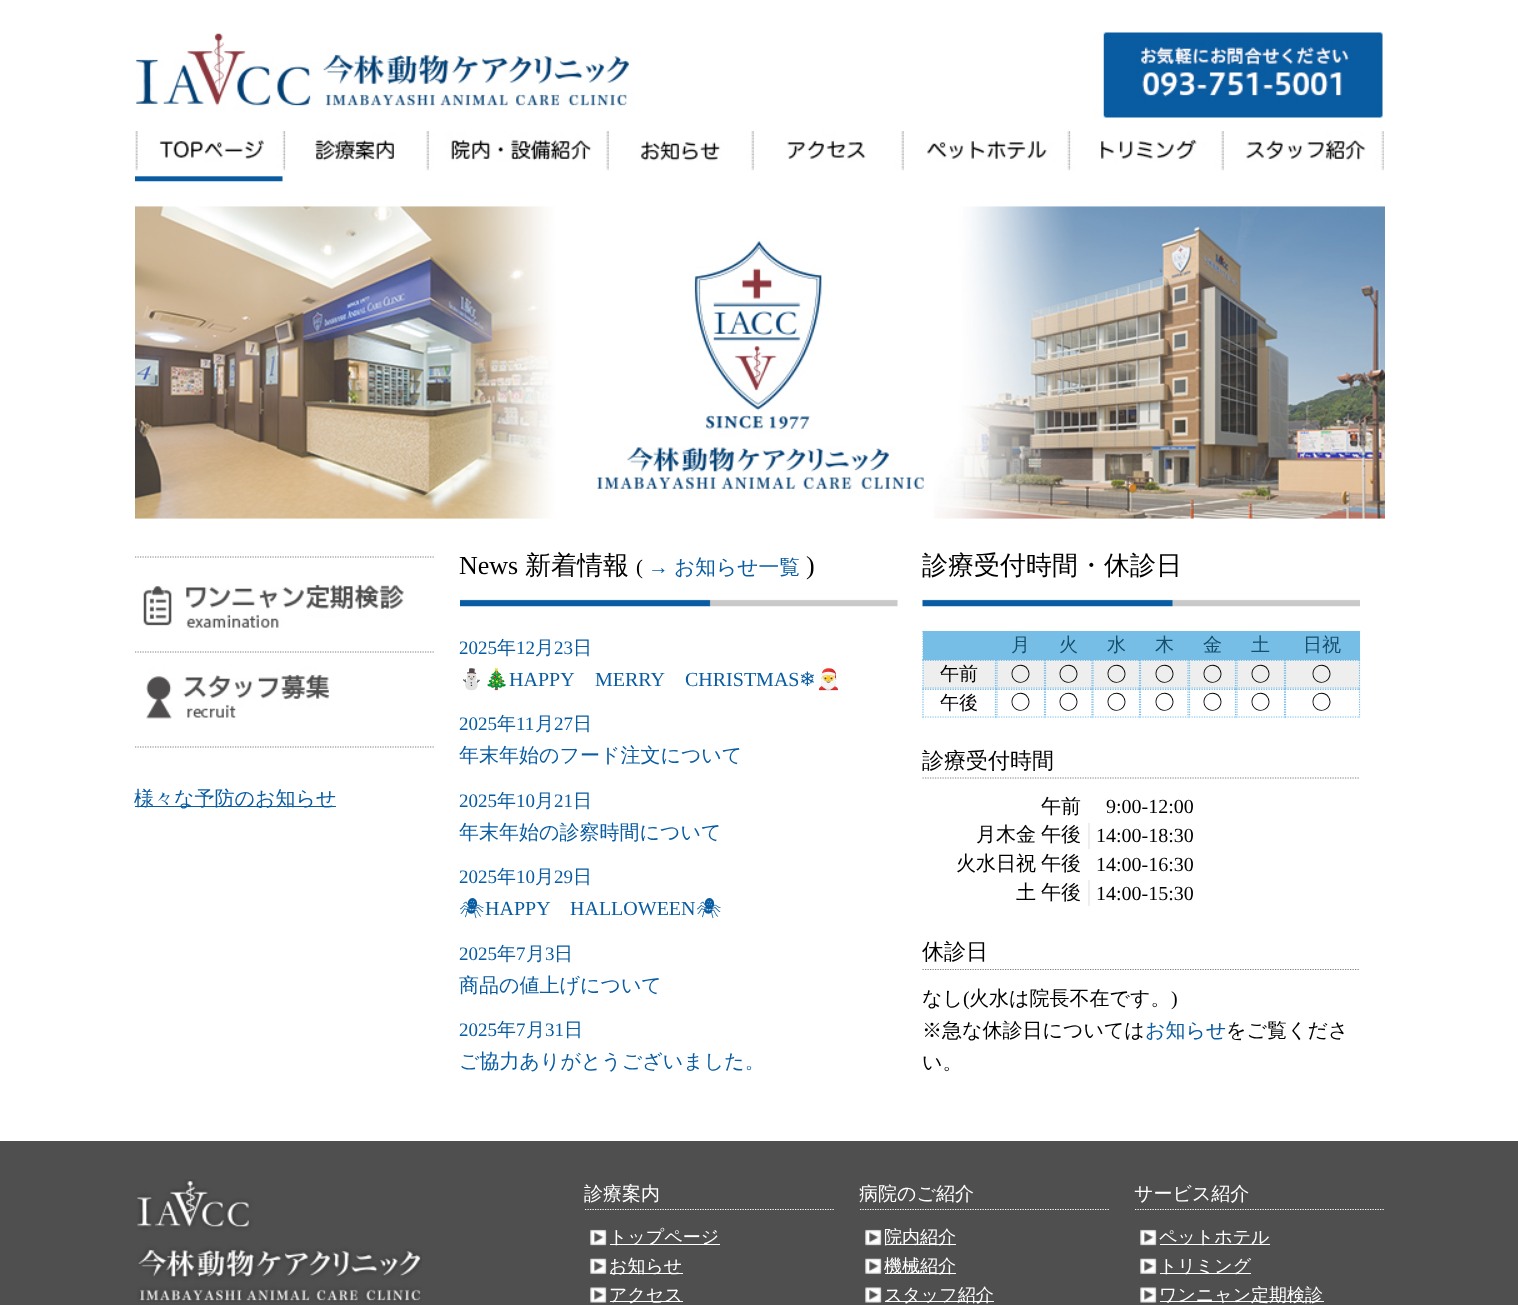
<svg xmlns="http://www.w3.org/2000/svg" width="1518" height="1305">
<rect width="100%" height="100%" fill="#fff"/>
<image x="136" y="32" width="1247" height="86" href="media/1.png"/>
<image x="135" y="131" width="1249" height="40" href="media/2.png"/>
<image x="136" y="131" width="147" height="37" href="media/3.png"/>
<image x="282" y="131" width="145" height="37" href="media/5.png"/>
<image x="135" y="132" width="148" height="50" href="media/4.png"/>
<image x="426" y="131" width="181" height="37" href="media/6.png"/>
<image x="606" y="131" width="146" height="37" href="media/7.png"/>
<image x="751" y="131" width="151" height="37" href="media/8.png"/>
<image x="901" y="131" width="167" height="37" href="media/9.png"/>
<image x="1067" y="131" width="155" height="37" href="media/10.png"/>
<image x="1221" y="131" width="162" height="39" href="media/11.png"/>
<image x="135" y="206" width="1250" height="313" href="media/12.png"/>
<image x="143" y="584" width="261" height="135" href="media/13.png"/>
<path d="M135 557h300" fill="none" stroke="#808080" stroke-width="1.2" stroke-dasharray="1.25 1.25"/>
<path d="M135 652h300" fill="none" stroke="#808080" stroke-width="1.2" stroke-dasharray="1.25 1.25"/>
<path d="M135 747h300" fill="none" stroke="#808080" stroke-width="1.2" stroke-dasharray="1.25 1.25"/>
<rect x="135" y="806" width="201" height="1" fill="#095ca1"/>
<text x="134" y="805" style="font-family:WenQuanYi Zen Hei;font-size:20px;font-weight:500;fill:#095ca1">様々な予防のお知らせ</text>
<image x="460" y="599" width="438" height="8" href="media/14.png"/>
<text x="459" y="574" style="font-family:Liberation Serif;font-size:26px;fill:#000">News</text>
<text x="525" y="574" style="font-family:WenQuanYi Zen Hei;font-size:26px;font-weight:500;fill:#000">新着情報</text>
<text x="636" y="574" style="font-family:Liberation Serif;font-size:20.75px;fill:#000">(</text>
<text x="648" y="574" style="font-family:Liberation Serif;font-size:20.75px;fill:#095ca1">→</text>
<text x="674" y="574" style="font-family:WenQuanYi Zen Hei;font-size:20.75px;font-weight:500;fill:#095ca1">お知らせ一覧</text>
<text x="806" y="574" style="font-family:Liberation Serif;font-size:26px;fill:#000">)</text>
<text x="459" y="654" style="font-family:Liberation Serif;font-size:19px;fill:#095ca1">2025</text>
<text x="497" y="654" style="font-family:WenQuanYi Zen Hei;font-size:19px;font-weight:500;fill:#095ca1">年</text>
<text x="516" y="654" style="font-family:Liberation Serif;font-size:19px;fill:#095ca1">12</text>
<text x="535" y="654" style="font-family:WenQuanYi Zen Hei;font-size:19px;font-weight:500;fill:#095ca1">月</text>
<text x="554" y="654" style="font-family:Liberation Serif;font-size:19px;fill:#095ca1">23</text>
<text x="573" y="654" style="font-family:WenQuanYi Zen Hei;font-size:19px;font-weight:500;fill:#095ca1">日</text>
<text x="459" y="686" style="font-family:Noto Color Emoji;font-size:20px;fill:#095ca1">⛄🎄</text>
<text x="509" y="686" style="font-family:Liberation Serif;font-size:20px;fill:#095ca1">HAPPY</text>
<text x="595" y="686" style="font-family:Liberation Serif;font-size:20px;fill:#095ca1">MERRY</text>
<text x="685" y="686" style="font-family:Liberation Serif;font-size:20px;fill:#095ca1">CHRISTMAS</text>
<text x="799" y="686" style="font-family:DejaVu Sans;font-size:20px;fill:#095ca1">❄</text>
<text x="816" y="686" style="font-family:Noto Color Emoji;font-size:20px;fill:#095ca1">🎅</text>
<text x="459" y="730" style="font-family:Liberation Serif;font-size:19px;fill:#095ca1">2025</text>
<text x="497" y="730" style="font-family:WenQuanYi Zen Hei;font-size:19px;font-weight:500;fill:#095ca1">年</text>
<text x="516" y="730" style="font-family:Liberation Serif;font-size:19px;fill:#095ca1">11</text>
<text x="535" y="730" style="font-family:WenQuanYi Zen Hei;font-size:19px;font-weight:500;fill:#095ca1">月</text>
<text x="554" y="730" style="font-family:Liberation Serif;font-size:19px;fill:#095ca1">27</text>
<text x="573" y="730" style="font-family:WenQuanYi Zen Hei;font-size:19px;font-weight:500;fill:#095ca1">日</text>
<text x="459" y="762" style="font-family:WenQuanYi Zen Hei;font-size:20px;font-weight:500;fill:#095ca1">年末年始のフード注文について</text>
<text x="459" y="807" style="font-family:Liberation Serif;font-size:19px;fill:#095ca1">2025</text>
<text x="497" y="807" style="font-family:WenQuanYi Zen Hei;font-size:19px;font-weight:500;fill:#095ca1">年</text>
<text x="516" y="807" style="font-family:Liberation Serif;font-size:19px;fill:#095ca1">10</text>
<text x="535" y="807" style="font-family:WenQuanYi Zen Hei;font-size:19px;font-weight:500;fill:#095ca1">月</text>
<text x="554" y="807" style="font-family:Liberation Serif;font-size:19px;fill:#095ca1">21</text>
<text x="573" y="807" style="font-family:WenQuanYi Zen Hei;font-size:19px;font-weight:500;fill:#095ca1">日</text>
<text x="459" y="839" style="font-family:WenQuanYi Zen Hei;font-size:20px;font-weight:500;fill:#095ca1">年末年始の診察時間について</text>
<text x="459" y="883" style="font-family:Liberation Serif;font-size:19px;fill:#095ca1">2025</text>
<text x="497" y="883" style="font-family:WenQuanYi Zen Hei;font-size:19px;font-weight:500;fill:#095ca1">年</text>
<text x="516" y="883" style="font-family:Liberation Serif;font-size:19px;fill:#095ca1">10</text>
<text x="535" y="883" style="font-family:WenQuanYi Zen Hei;font-size:19px;font-weight:500;fill:#095ca1">月</text>
<text x="554" y="883" style="font-family:Liberation Serif;font-size:19px;fill:#095ca1">29</text>
<text x="573" y="883" style="font-family:WenQuanYi Zen Hei;font-size:19px;font-weight:500;fill:#095ca1">日</text>
<text x="459" y="915" style="font-family:Noto Emoji;font-size:20px;fill:#095ca1">🕷</text>
<text x="485" y="915" style="font-family:Liberation Serif;font-size:20px;fill:#095ca1">HAPPY</text>
<text x="570" y="915" style="font-family:Liberation Serif;font-size:20px;fill:#095ca1">HALLOWEEN</text>
<text x="696" y="915" style="font-family:Noto Emoji;font-size:20px;fill:#095ca1">🕷</text>
<text x="459" y="960" style="font-family:Liberation Serif;font-size:19px;fill:#095ca1">2025</text>
<text x="497" y="960" style="font-family:WenQuanYi Zen Hei;font-size:19px;font-weight:500;fill:#095ca1">年</text>
<text x="516" y="960" style="font-family:Liberation Serif;font-size:19px;fill:#095ca1">7</text>
<text x="526" y="960" style="font-family:WenQuanYi Zen Hei;font-size:19px;font-weight:500;fill:#095ca1">月</text>
<text x="545" y="960" style="font-family:Liberation Serif;font-size:19px;fill:#095ca1">3</text>
<text x="554" y="960" style="font-family:WenQuanYi Zen Hei;font-size:19px;font-weight:500;fill:#095ca1">日</text>
<text x="459" y="992" style="font-family:WenQuanYi Zen Hei;font-size:20px;font-weight:500;fill:#095ca1">商品の値上げについて</text>
<text x="459" y="1036" style="font-family:Liberation Serif;font-size:19px;fill:#095ca1">2025</text>
<text x="497" y="1036" style="font-family:WenQuanYi Zen Hei;font-size:19px;font-weight:500;fill:#095ca1">年</text>
<text x="516" y="1036" style="font-family:Liberation Serif;font-size:19px;fill:#095ca1">7</text>
<text x="526" y="1036" style="font-family:WenQuanYi Zen Hei;font-size:19px;font-weight:500;fill:#095ca1">月</text>
<text x="545" y="1036" style="font-family:Liberation Serif;font-size:19px;fill:#095ca1">31</text>
<text x="564" y="1036" style="font-family:WenQuanYi Zen Hei;font-size:19px;font-weight:500;fill:#095ca1">日</text>
<text x="459" y="1068" style="font-family:WenQuanYi Zen Hei;font-size:20px;font-weight:500;fill:#095ca1">ご協力ありがとうございました。</text>
<image x="922" y="599" width="438" height="8" href="media/15.png"/>
<text x="922" y="574" style="font-family:WenQuanYi Zen Hei;font-size:26px;font-weight:500;fill:#000">診療受付時間・休診日</text>
<rect x="923" y="631" width="73" height="29" fill="#77bee7"/>
<path d="M922.5 632h73.5" fill="none" stroke="#77bee7" stroke-width="1.2" stroke-dasharray="1.25 1.25"/>
<path d="M995.5 631v29" fill="none" stroke="#77bee7" stroke-width="1.2" stroke-dasharray="1.25 1.25"/>
<path d="M922.5 659.5h73.5" fill="none" stroke="#77bee7" stroke-width="1.2" stroke-dasharray="1.25 1.25"/>
<path d="M923 631v29" fill="none" stroke="#77bee7" stroke-width="1.2" stroke-dasharray="1.25 1.25"/>
<rect x="996" y="631" width="49" height="29" fill="#77bee7"/>
<path d="M1044.5 631v29m-48.5-.5h49" fill="none" stroke="#77bee7" stroke-width="1.2" stroke-dasharray="1.25 1.25"/>
<text x="1011" y="651" style="font-family:WenQuanYi Zen Hei;font-size:19px;font-weight:500;fill:#164f6c">月</text>
<rect x="1045" y="631" width="95" height="29" fill="#77bee7"/>
<path d="M1045 659.5h47.5" fill="none" stroke="#77bee7" stroke-width="1.2" stroke-dasharray="1.25 1.25"/>
<text x="1059" y="651" style="font-family:WenQuanYi Zen Hei;font-size:19px;font-weight:500;fill:#164f6c">火</text>
<path d="M1139.5 631v29m-47-.5h47.5" fill="none" stroke="#77bee7" stroke-width="1.2" stroke-dasharray="1.25 1.25"/>
<text x="1107" y="651" style="font-family:WenQuanYi Zen Hei;font-size:19px;font-weight:500;fill:#164f6c">水</text>
<rect x="1140" y="631" width="96" height="29" fill="#77bee7"/>
<path d="M1140 659.5h49" fill="none" stroke="#77bee7" stroke-width="1.2" stroke-dasharray="1.25 1.25"/>
<text x="1155" y="651" style="font-family:WenQuanYi Zen Hei;font-size:19px;font-weight:500;fill:#164f6c">木</text>
<path d="M1235.5 631v29m-46.5-.5h47" fill="none" stroke="#77bee7" stroke-width="1.2" stroke-dasharray="1.25 1.25"/>
<text x="1203" y="651" style="font-family:WenQuanYi Zen Hei;font-size:19px;font-weight:500;fill:#164f6c">金</text>
<rect x="1236" y="631" width="49" height="29" fill="#77bee7"/>
<path d="M1284.5 631v29m-48.5-.5h49" fill="none" stroke="#77bee7" stroke-width="1.2" stroke-dasharray="1.25 1.25"/>
<text x="1251" y="651" style="font-family:WenQuanYi Zen Hei;font-size:19px;font-weight:500;fill:#164f6c">土</text>
<rect x="1285" y="631" width="75" height="29" fill="#77bee7"/>
<path d="M1359.5 631v29" fill="none" stroke="#77bee7" stroke-width="1.2" stroke-dasharray="1.25 1.25"/>
<path d="M1285 659.5h75" fill="none" stroke="#77bee7" stroke-width="1.2" stroke-dasharray="1.25 1.25"/>
<text x="1303" y="651" style="font-family:WenQuanYi Zen Hei;font-size:19px;font-weight:500;fill:#164f6c">日祝</text>
<rect x="923" y="660" width="437" height="29" fill="#eee"/>
<path d="M922.5 660.5h73.5" fill="none" stroke="#77bee7" stroke-width="1.2" stroke-dasharray="1.25 1.25"/>
<path d="M995.5 660v29" fill="none" stroke="#77bee7" stroke-width="1.2" stroke-dasharray="1.25 1.25"/>
<path d="M922.5 688h73.5" fill="none" stroke="#77bee7" stroke-width="1.2" stroke-dasharray="1.25 1.25"/>
<path d="M923 660v29" fill="none" stroke="#77bee7" stroke-width="1.2" stroke-dasharray="1.25 1.25"/>
<text x="940" y="680" style="font-family:WenQuanYi Zen Hei;font-size:19px;font-weight:500;fill:#000">午前</text>
<path d="M996 660.5h49m-.5-.5v29m-48.5-1h49m-48-28v29" fill="none" stroke="#77bee7" stroke-width="1.2" stroke-dasharray="1.25 1.25"/>
<text x="1011" y="681" style="font-family:IPAPGothic;font-size:19px;fill:#000">◯</text>
<path d="M1045 660.5h47.5m-.5-.5v29m-47-1h47.5m-47-28v29" fill="none" stroke="#77bee7" stroke-width="1.2" stroke-dasharray="1.25 1.25"/>
<text x="1059" y="681" style="font-family:IPAPGothic;font-size:19px;fill:#000">◯</text>
<path d="M1092.5 660.5h47.5m-.5-.5v29m-47-1h47.5m-47-28v29" fill="none" stroke="#77bee7" stroke-width="1.2" stroke-dasharray="1.25 1.25"/>
<text x="1107" y="681" style="font-family:IPAPGothic;font-size:19px;fill:#000">◯</text>
<path d="M1140 660.5h49m-1-.5v29m-48-1h49m-48.5-28v29" fill="none" stroke="#77bee7" stroke-width="1.2" stroke-dasharray="1.25 1.25"/>
<text x="1155" y="681" style="font-family:IPAPGothic;font-size:19px;fill:#000">◯</text>
<path d="M1189 660.5h47m-.5-.5v29m-46.5-1h47m-46.5-28v29" fill="none" stroke="#77bee7" stroke-width="1.2" stroke-dasharray="1.25 1.25"/>
<text x="1203" y="681" style="font-family:IPAPGothic;font-size:19px;fill:#000">◯</text>
<path d="M1236 660.5h49m-.5-.5v29m-48.5-1h49m-48-28v29" fill="none" stroke="#77bee7" stroke-width="1.2" stroke-dasharray="1.25 1.25"/>
<text x="1251" y="681" style="font-family:IPAPGothic;font-size:19px;fill:#000">◯</text>
<path d="M1285 660.5h75" fill="none" stroke="#77bee7" stroke-width="1.2" stroke-dasharray="1.25 1.25"/>
<path d="M1359.5 660v29" fill="none" stroke="#77bee7" stroke-width="1.2" stroke-dasharray="1.25 1.25"/>
<path d="M1285 688h75" fill="none" stroke="#77bee7" stroke-width="1.2" stroke-dasharray="1.25 1.25"/>
<path d="M1285.5 660v29" fill="none" stroke="#77bee7" stroke-width="1.2" stroke-dasharray="1.25 1.25"/>
<text x="1312" y="681" style="font-family:IPAPGothic;font-size:19px;fill:#000">◯</text>
<path d="M922.5 689.5h73.5" fill="none" stroke="#77bee7" stroke-width="1.2" stroke-dasharray="1.25 1.25"/>
<path d="M995.5 689v28.5" fill="none" stroke="#77bee7" stroke-width="1.2" stroke-dasharray="1.25 1.25"/>
<path d="M922.5 717h73.5" fill="none" stroke="#77bee7" stroke-width="1.2" stroke-dasharray="1.25 1.25"/>
<path d="M923 689v28.5" fill="none" stroke="#77bee7" stroke-width="1.2" stroke-dasharray="1.25 1.25"/>
<text x="940" y="709" style="font-family:WenQuanYi Zen Hei;font-size:19px;font-weight:500;fill:#000">午後</text>
<path d="M996 689.5h49m-.5-.5v28.5m-48.5-.5h49m-48-28v28.5" fill="none" stroke="#77bee7" stroke-width="1.2" stroke-dasharray="1.25 1.25"/>
<text x="1011" y="709" style="font-family:IPAPGothic;font-size:19px;fill:#000">◯</text>
<path d="M1045 689.5h47.5m-.5-.5v28.5m-47-.5h47.5m-47-28v28.5" fill="none" stroke="#77bee7" stroke-width="1.2" stroke-dasharray="1.25 1.25"/>
<text x="1059" y="709" style="font-family:IPAPGothic;font-size:19px;fill:#000">◯</text>
<path d="M1092.5 689.5h47.5m-.5-.5v28.5m-47-.5h47.5m-47-28v28.5" fill="none" stroke="#77bee7" stroke-width="1.2" stroke-dasharray="1.25 1.25"/>
<text x="1107" y="709" style="font-family:IPAPGothic;font-size:19px;fill:#000">◯</text>
<path d="M1140 689.5h49m-1-.5v28.5m-48-.5h49m-48.5-28v28.5" fill="none" stroke="#77bee7" stroke-width="1.2" stroke-dasharray="1.25 1.25"/>
<text x="1155" y="709" style="font-family:IPAPGothic;font-size:19px;fill:#000">◯</text>
<path d="M1189 689.5h47m-.5-.5v28.5m-46.5-.5h47m-46.5-28v28.5" fill="none" stroke="#77bee7" stroke-width="1.2" stroke-dasharray="1.25 1.25"/>
<text x="1203" y="709" style="font-family:IPAPGothic;font-size:19px;fill:#000">◯</text>
<path d="M1236 689.5h49m-.5-.5v28.5m-48.5-.5h49m-48-28v28.5" fill="none" stroke="#77bee7" stroke-width="1.2" stroke-dasharray="1.25 1.25"/>
<text x="1251" y="709" style="font-family:IPAPGothic;font-size:19px;fill:#000">◯</text>
<path d="M1285 689.5h75" fill="none" stroke="#77bee7" stroke-width="1.2" stroke-dasharray="1.25 1.25"/>
<path d="M1359.5 689v28.5" fill="none" stroke="#77bee7" stroke-width="1.2" stroke-dasharray="1.25 1.25"/>
<path d="M1285 717h75" fill="none" stroke="#77bee7" stroke-width="1.2" stroke-dasharray="1.25 1.25"/>
<path d="M1285.5 689v28.5" fill="none" stroke="#77bee7" stroke-width="1.2" stroke-dasharray="1.25 1.25"/>
<text x="1312" y="709" style="font-family:IPAPGothic;font-size:19px;fill:#000">◯</text>
<path d="M922.5 778h437.5" fill="none" stroke="#808080" stroke-width="1.2" stroke-dasharray="1.25 1.25"/>
<text x="922" y="768" style="font-family:WenQuanYi Zen Hei;font-size:22px;font-weight:500;fill:#000">診療受付時間</text>
<text x="1041" y="813" style="font-family:WenQuanYi Zen Hei;font-size:20px;font-weight:500;fill:#000">午前</text>
<text x="1106" y="813" style="font-family:Liberation Serif;font-size:20px;fill:#000">9:00-12:00</text>
<rect x="1088" y="823" width="2" height="26" fill="#eee"/>
<text x="976" y="841" word-spacing="-1" style="font-family:WenQuanYi Zen Hei;font-size:20px;font-weight:500;fill:#000">月木金 午後</text>
<text x="1096" y="842" style="font-family:Liberation Serif;font-size:20px;fill:#000">14:00-18:30</text>
<text x="956" y="870" word-spacing="-1" style="font-family:WenQuanYi Zen Hei;font-size:20px;font-weight:500;fill:#000">火水日祝 午後</text>
<text x="1096" y="871" style="font-family:Liberation Serif;font-size:20px;fill:#000">14:00-16:30</text>
<rect x="1088" y="880" width="2" height="26" fill="#eee"/>
<text x="1016" y="899" word-spacing="-1" style="font-family:WenQuanYi Zen Hei;font-size:20px;font-weight:500;fill:#000">土 午後</text>
<text x="1096" y="900" style="font-family:Liberation Serif;font-size:20px;fill:#000">14:00-15:30</text>
<path d="M922.5 969.5h437.5" fill="none" stroke="#808080" stroke-width="1.2" stroke-dasharray="1.25 1.25"/>
<text x="922" y="959" style="font-family:WenQuanYi Zen Hei;font-size:22px;font-weight:500;fill:#000">休診日</text>
<text x="922" y="1005" style="font-family:WenQuanYi Zen Hei;font-size:20px;font-weight:500;fill:#000">なし</text>
<text x="963" y="1005" style="font-family:Liberation Serif;font-size:20px;fill:#000">(</text>
<text x="969" y="1005" style="font-family:WenQuanYi Zen Hei;font-size:20px;font-weight:500;fill:#000">火水は院長不在です。</text>
<text x="1171" y="1005" style="font-family:Liberation Serif;font-size:20px;fill:#000">)</text>
<text x="922" y="1037" style="font-family:WenQuanYi Zen Hei;font-size:20px;font-weight:500;fill:#000">※急な休診日については</text>
<text x="1145" y="1037" style="font-family:WenQuanYi Zen Hei;font-size:20px;font-weight:500;fill:#095ca1">お知らせ</text>
<text x="1226" y="1037" style="font-family:WenQuanYi Zen Hei;font-size:20px;font-weight:500;fill:#000">をご覧くださ</text>
<text x="922" y="1069" style="font-family:WenQuanYi Zen Hei;font-size:20px;font-weight:500;fill:#000">い。</text>
<rect y="1141" width="1518" height="164" fill="#4f4f4f"/>
<image x="137" y="1179" width="285" height="123" href="media/16.png"/>
<path d="M585 1209.5h250" fill="none" stroke="#fff" stroke-width="1.2" stroke-dasharray="1.25 1.25"/>
<text x="584" y="1200" style="font-family:WenQuanYi Zen Hei;font-size:19px;font-weight:500;fill:#fff">診療案内</text>
<image x="590" y="1229" width="17" height="17" href="media/17.png"/>
<rect x="610" y="1244" width="110" height="1" fill="#fff"/>
<text x="609" y="1243" style="font-family:WenQuanYi Zen Hei;font-size:18px;font-weight:500;fill:#fff">トップページ</text>
<image x="590" y="1258" width="17" height="16" href="media/18.png"/>
<rect x="610" y="1273" width="73" height="1" fill="#fff"/>
<text x="609" y="1272" style="font-family:WenQuanYi Zen Hei;font-size:18px;font-weight:500;fill:#fff">お知らせ</text>
<image x="590" y="1287" width="17" height="16" href="media/19.png"/>
<rect x="610" y="1301" width="73" height="1" fill="#fff"/>
<text x="609" y="1301" style="font-family:WenQuanYi Zen Hei;font-size:18px;font-weight:500;fill:#fff">アクセス</text>
<path d="M860 1209.5h250" fill="none" stroke="#fff" stroke-width="1.2" stroke-dasharray="1.25 1.25"/>
<text x="859" y="1200" style="font-family:WenQuanYi Zen Hei;font-size:19px;font-weight:500;fill:#fff">病院のご紹介</text>
<image x="865" y="1229" width="17" height="17" href="media/17.png"/>
<rect x="885" y="1244" width="71" height="1" fill="#fff"/>
<text x="884" y="1243" style="font-family:WenQuanYi Zen Hei;font-size:18px;font-weight:500;fill:#fff">院内紹介</text>
<image x="865" y="1258" width="17" height="16" href="media/18.png"/>
<rect x="885" y="1273" width="71" height="1" fill="#fff"/>
<text x="884" y="1272" style="font-family:WenQuanYi Zen Hei;font-size:18px;font-weight:500;fill:#fff">機械紹介</text>
<image x="865" y="1287" width="17" height="16" href="media/19.png"/>
<rect x="885" y="1301" width="109" height="1" fill="#fff"/>
<text x="884" y="1301" style="font-family:WenQuanYi Zen Hei;font-size:18px;font-weight:500;fill:#fff">スタッフ紹介</text>
<path d="M1135 1209.5h250" fill="none" stroke="#fff" stroke-width="1.2" stroke-dasharray="1.25 1.25"/>
<text x="1134" y="1200" style="font-family:WenQuanYi Zen Hei;font-size:19px;font-weight:500;fill:#fff">サービス紹介</text>
<image x="1140" y="1229" width="17" height="17" href="media/17.png"/>
<rect x="1160" y="1244" width="110" height="1" fill="#fff"/>
<text x="1159" y="1243" style="font-family:WenQuanYi Zen Hei;font-size:18px;font-weight:500;fill:#fff">ペットホテル</text>
<image x="1140" y="1258" width="17" height="16" href="media/18.png"/>
<rect x="1160" y="1273" width="91" height="1" fill="#fff"/>
<text x="1159" y="1272" style="font-family:WenQuanYi Zen Hei;font-size:18px;font-weight:500;fill:#fff">トリミング</text>
<image x="1140" y="1287" width="17" height="16" href="media/19.png"/>
<rect x="1160" y="1301" width="164" height="1" fill="#fff"/>
<text x="1159" y="1301" style="font-family:WenQuanYi Zen Hei;font-size:18px;font-weight:500;fill:#fff">ワンニャン定期検診</text>
</svg>
